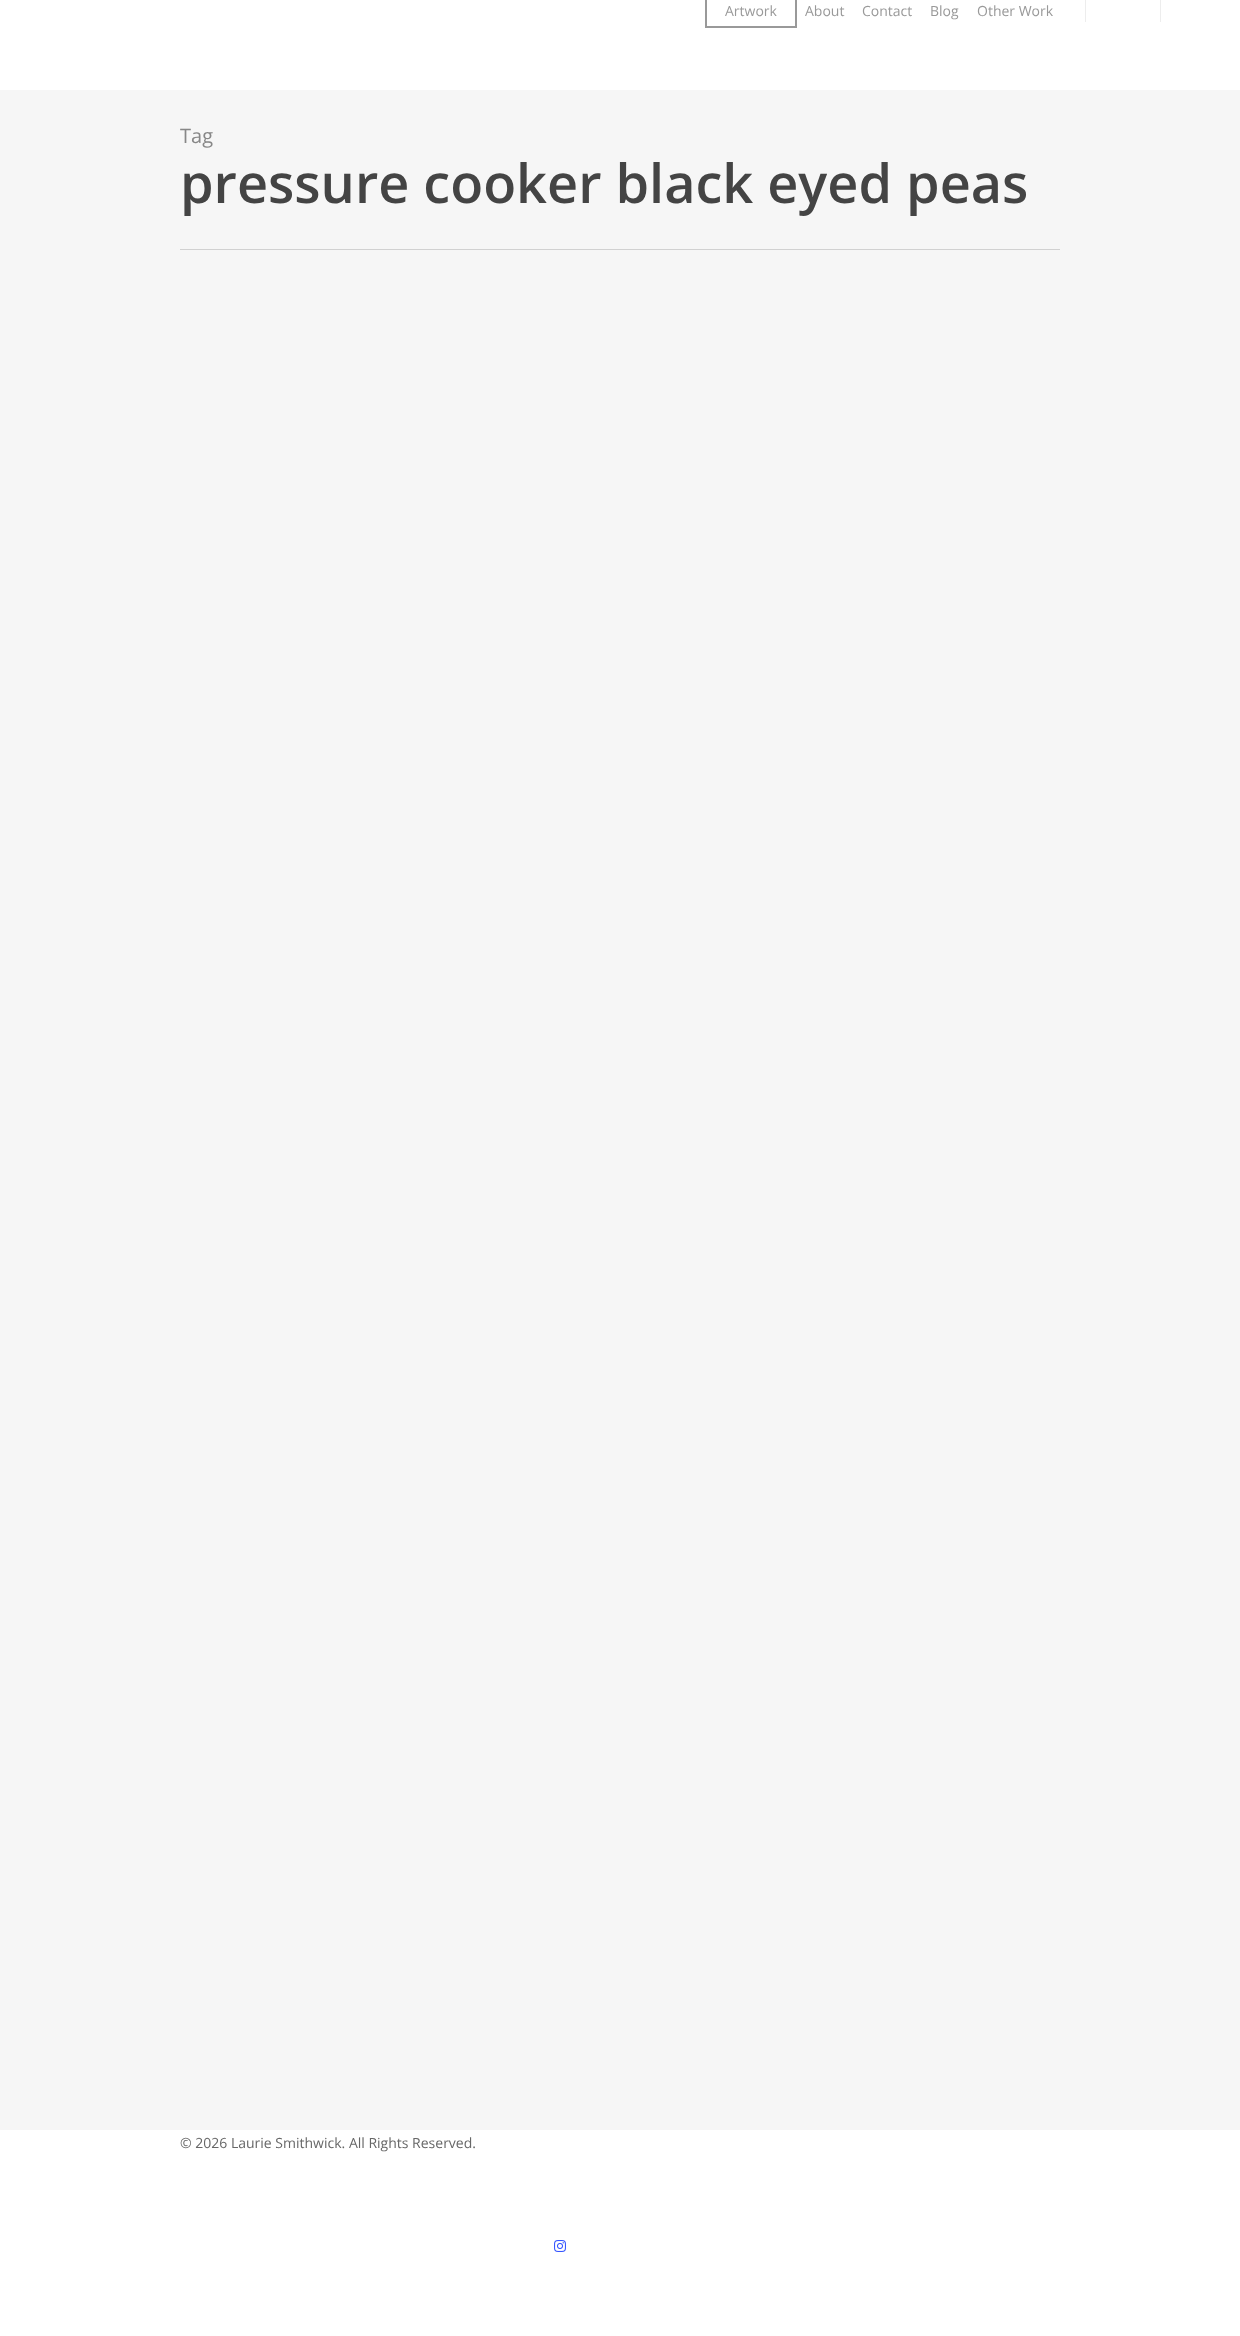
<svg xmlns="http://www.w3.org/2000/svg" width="1240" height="2336">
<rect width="100%" height="100%" fill="#fff"/>
<rect x="706" y="-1" width="90" height="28" fill="none" stroke="#999" stroke-width="2"/>
<text x="725" y="16" style="font-family:Open Sans;font-size:14px;fill:#999">Artwork</text>
<text x="805" y="16" style="font-family:Open Sans;font-size:14px;fill:#999">About</text>
<text x="862" y="16" style="font-family:Open Sans;font-size:14px;fill:#999">Contact</text>
<text x="930" y="16" style="font-family:Open Sans;font-size:14px;fill:#999">Blog</text>
<text x="977" y="16" style="font-family:Open Sans;font-size:14px;fill:#999">Other Work</text>
<rect x="1085" width="1" height="22" fill="#ededed"/>
<rect x="1160" width="1" height="22" fill="#ededed"/>
<rect y="90" width="1240" height="2040" fill="#f6f6f6"/>
<rect x="180" y="249" width="880" height="1" fill="#d1d1d1"/>
<text x="180" y="143" style="font-family:Open Sans;font-size:20px;fill:#878787">Tag</text>
<text x="180" y="203" style="font-family:Open Sans;font-size:54px;font-weight:600;fill:#444">pressure cooker black eyed peas</text>
<text x="180" y="2148" style="font-family:Open Sans;font-size:14px;fill:#676767">© 2026 Laurie Smithwick. All Rights Reserved.</text>
<image x="554" y="2240" width="12" height="12" href="media/1.png"/>
</svg>
